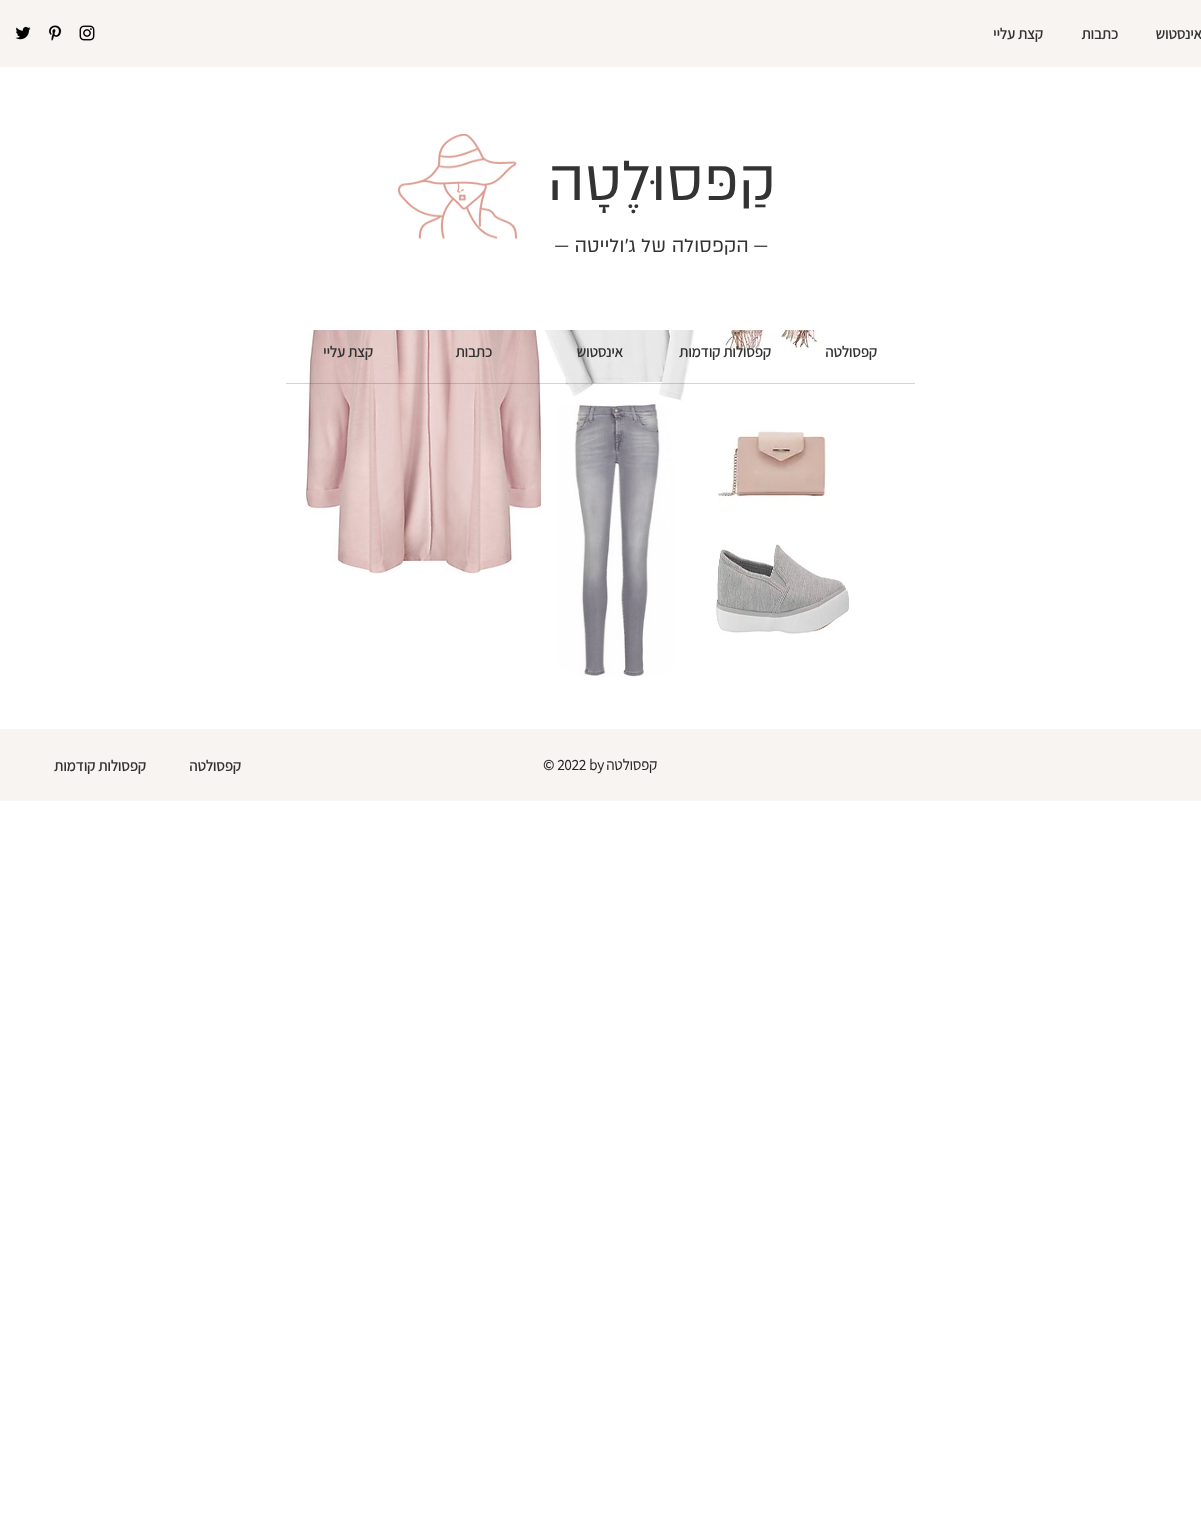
<svg xmlns="http://www.w3.org/2000/svg" width="1201" height="1531">
<rect width="100%" height="100%" fill="#fff"/>
<rect width="1201" height="67" fill="#f8f4f2"/>
<text x="1202" y="39" style="font-family:Assistant;font-size:15px;font-weight:bold;direction:rtl;fill:#333">אינסטוש</text>
<text x="1118" y="39" style="font-family:Assistant;font-size:15px;font-weight:bold;direction:rtl;fill:#333">כתבות</text>
<text x="1043" y="39" style="font-family:Assistant;font-size:15px;font-weight:bold;direction:rtl;fill:#333">קצת עליי</text>
<image x="79" y="25" width="16" height="16" href="media/1.png"/>
<image x="48" y="25" width="14" height="16" href="media/2.png"/>
<image x="15" y="26" width="16" height="14" href="media/3.png"/>
<text x="776" y="200" style="font-family:'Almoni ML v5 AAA';font-size:65px;direction:rtl;fill:#333">קַפּסוּלֶטָה</text>
<text x="754" y="252" style="font-family:'Almoni ML v5 AAA';font-size:22px;fill:#333">—</text>
<text x="749" y="252" style="font-family:'Almoni ML v5 AAA';font-size:22px;direction:rtl;fill:#333">הקפסולה של ג׳ולייטה</text>
<text x="555" y="252" style="font-family:'Almoni ML v5 AAA';font-size:22px;fill:#333">—</text>
<image x="398" y="134" width="120" height="106" href="media/4.png"/>
<image x="360" y="330" width="479" height="340" href="media/6.png"/>
<text x="877" y="357" style="font-family:Assistant;font-size:15px;font-weight:bold;direction:rtl;fill:#333">קפסולטה</text>
<image x="541" y="330" width="158" height="71" href="media/7.png"/>
<text x="771" y="357" style="font-family:Assistant;font-size:15px;font-weight:bold;direction:rtl;fill:#333">קפסולות קודמות</text>
<text x="623" y="357" style="font-family:Assistant;font-size:15px;font-weight:bold;direction:rtl;fill:#333">אינסטוש</text>
<image x="306" y="330" width="235" height="244" href="media/5.png"/>
<text x="492" y="357" style="font-family:Assistant;font-size:15px;font-weight:bold;direction:rtl;fill:#333">כתבות</text>
<text x="373" y="357" style="font-family:Assistant;font-size:15px;font-weight:bold;direction:rtl;fill:#333">קצת עליי</text>
<rect x="286" y="383" width="629" height="1" fill="#33333336"/>
<image x="716" y="544" width="133" height="90" href="media/8.png"/>
<image x="574" y="404" width="92" height="273" href="media/9.png"/>
<rect y="729" width="1201" height="72" fill="#f8f4f2"/>
<text x="657" y="770" style="font-family:'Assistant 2';font-size:15px;font-weight:bold;direction:rtl;fill:#292929">קפסולטה</text>
<text x="543" y="770" style="font-family:'Assistant 2';font-size:15px;font-weight:bold;fill:#292929">© 2022 by</text>
<text x="241" y="771" style="font-family:Assistant;font-size:15px;font-weight:bold;direction:rtl;fill:#333">קפסולטה</text>
<text x="146" y="771" style="font-family:Assistant;font-size:15px;font-weight:bold;direction:rtl;fill:#333">קפסולות קודמות</text>
</svg>
